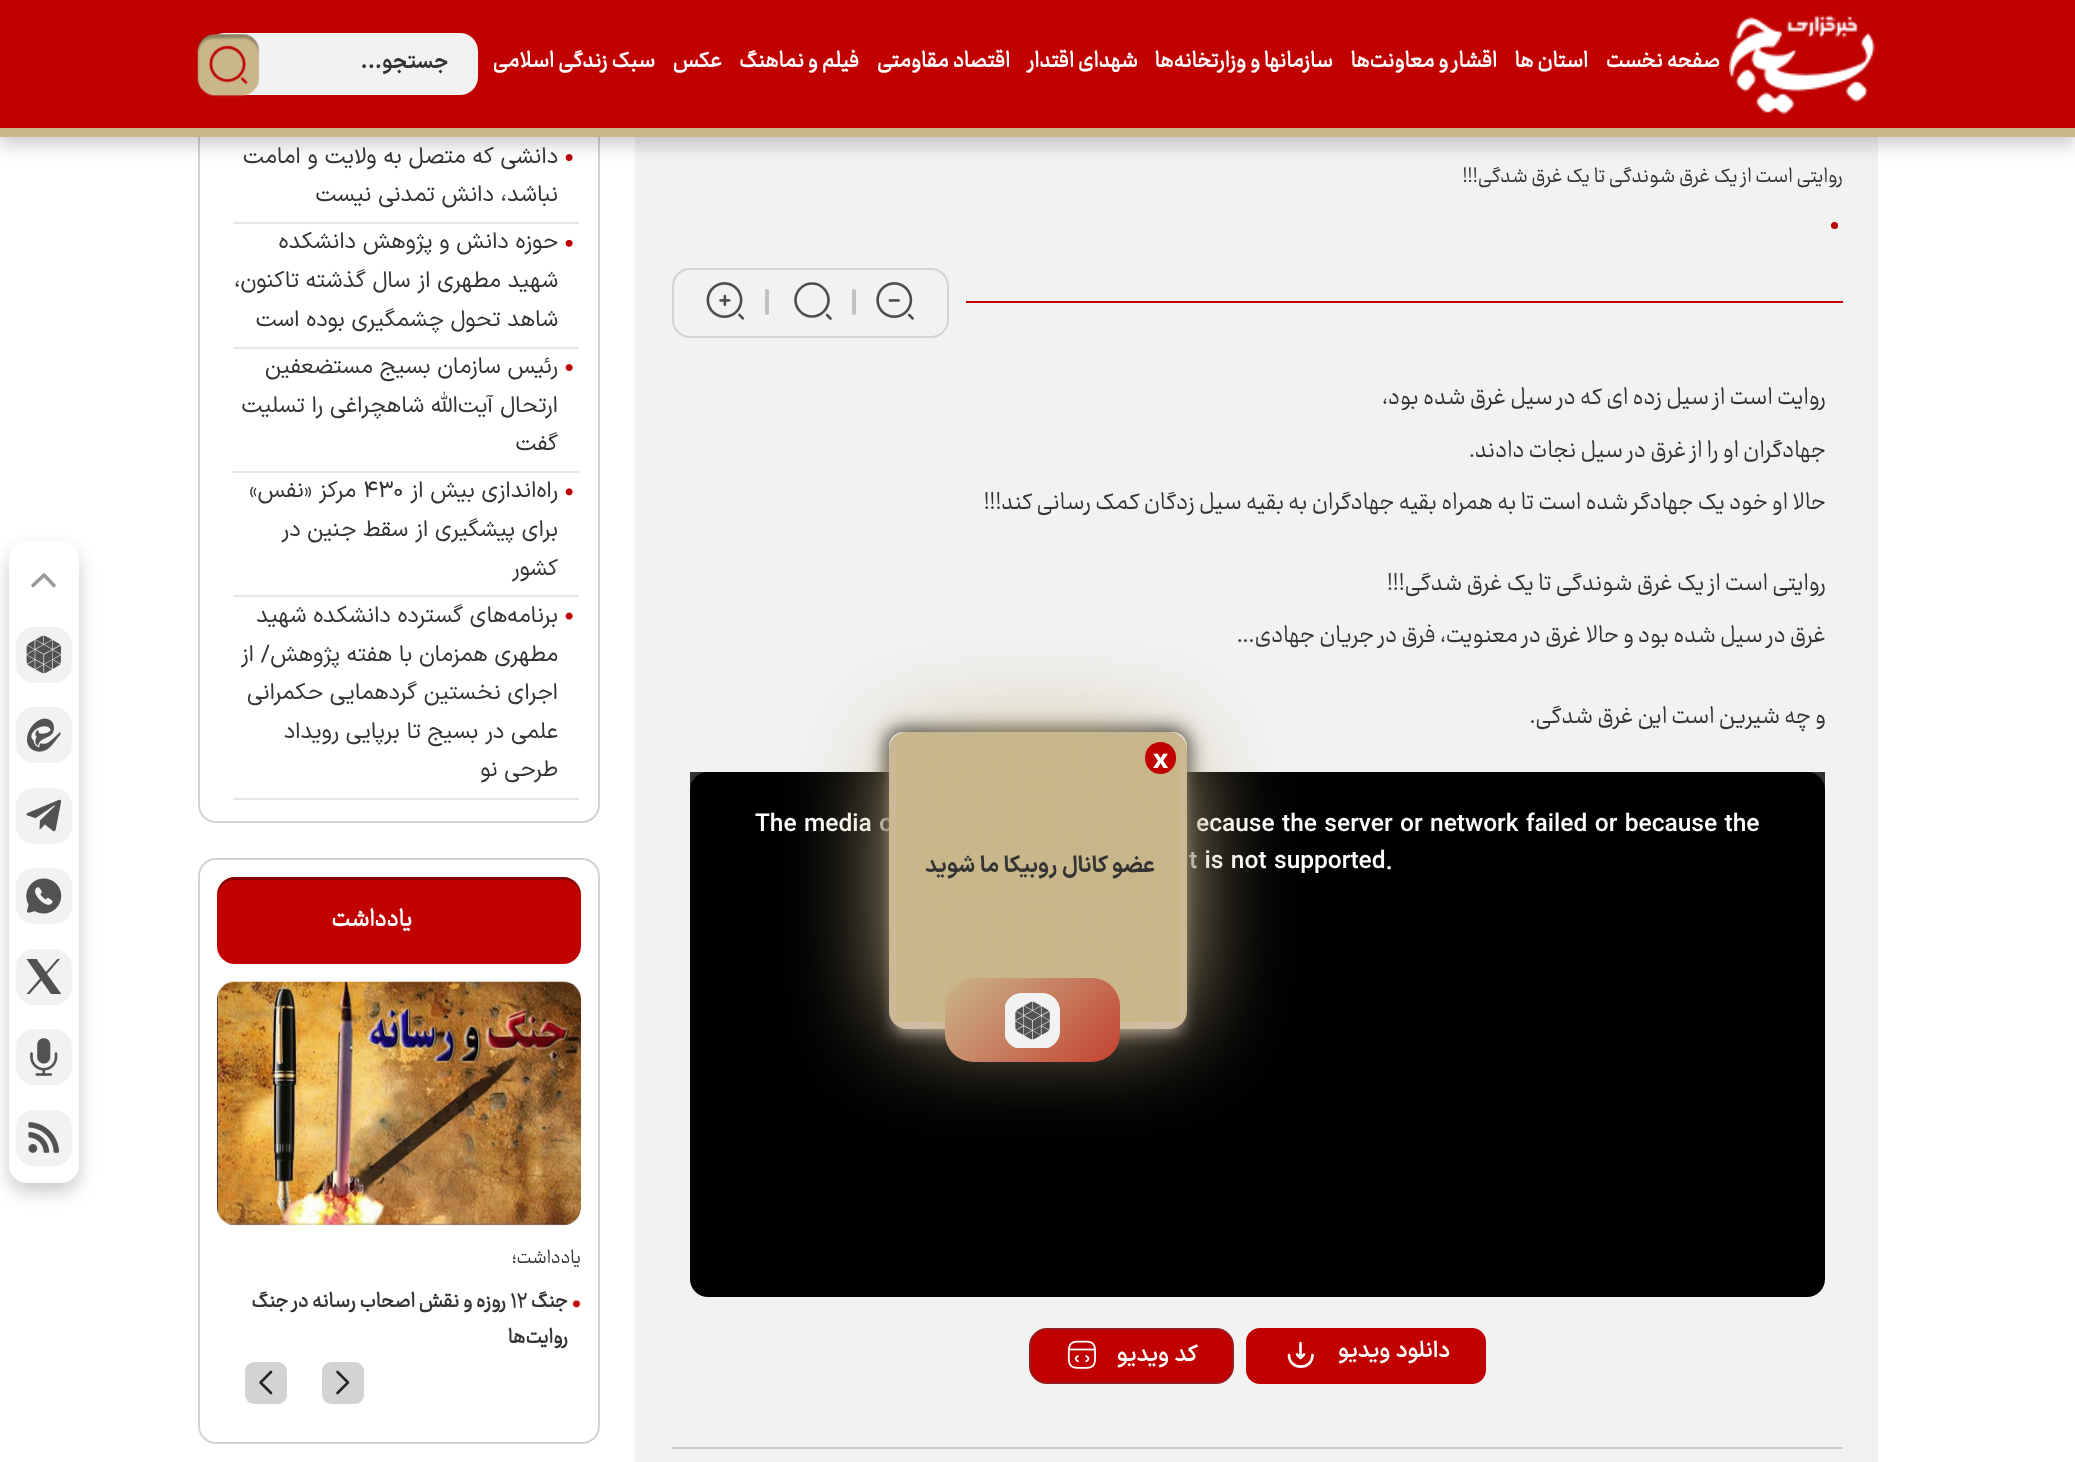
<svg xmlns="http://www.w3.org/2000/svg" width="2075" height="1462">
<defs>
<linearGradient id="g1" gradientUnits="userSpaceOnUse" x1="1257" y1="772" x2="1257" y2="1297"><stop offset="0" stop-color="#000" stop-opacity="0.8"/><stop offset="1" stop-color="#000" stop-opacity="0"/></linearGradient>
<clipPath id="clip1"><path d="M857 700h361v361h-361zm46 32h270c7.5 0 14 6.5 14 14v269c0 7.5-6.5 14-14 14h-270c-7.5 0-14-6.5-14-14v-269c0-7.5 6.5-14 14-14z" clip-rule="evenodd"/></clipPath>
<clipPath id="clip2"><path d="M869 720h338v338h-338zm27 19h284v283h-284z" clip-rule="evenodd"/></clipPath>
<linearGradient id="g2" gradientUnits="userSpaceOnUse" x1="968" y1="956" x2="1097" y2="1085"><stop offset="0" stop-color="#c9b68b"/><stop offset="1" stop-color="#c44131"/></linearGradient>
</defs>
<rect width="100%" height="100%" fill="#fff"/>
<rect x="635" y="137" width="1243" height="1325" fill="#f2f2f2"/>
<rect x="199" y="43" width="400" height="779" rx="17" fill="none" stroke="#d3d3d3" stroke-width="2"/>
<image x="565" y="154" width="8" height="8" href="media/6.png"/>
<rect y="9" width="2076" height="136" fill="#00000033" filter="blur(9px)"/>
<rect width="2075" height="128" fill="#c10000"/>
<rect y="128" width="2075" height="9" fill="#c9b68b"/>
<image x="1729" y="15" width="146" height="99" href="media/1.png"/>
<text x="1720" y="67" style="font-family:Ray;font-size:24.5px;font-weight:bold;direction:rtl;fill:#fff">صفحه نخست</text>
<text x="1588" y="67" style="font-family:Ray;font-size:24.5px;font-weight:bold;direction:rtl;fill:#fff">استان ها</text>
<text x="1497" y="67" style="font-family:Ray;font-size:24.5px;font-weight:bold;direction:rtl;fill:#fff">اقشار و معاونت‌ها</text>
<text x="1333" y="67" style="font-family:Ray;font-size:24.5px;font-weight:bold;direction:rtl;fill:#fff">سازمانها و وزارتخانه‌ها</text>
<text x="1138" y="67" style="font-family:Ray;font-size:24.5px;font-weight:bold;direction:rtl;fill:#fff">شهدای اقتدار</text>
<text x="1010" y="67" style="font-family:Ray;font-size:24.5px;font-weight:bold;direction:rtl;fill:#fff">اقتصاد مقاومتی</text>
<text x="859" y="67" style="font-family:Ray;font-size:24.5px;font-weight:bold;direction:rtl;fill:#fff">فیلم و نماهنگ</text>
<text x="722" y="67" style="font-family:Ray;font-size:24.5px;font-weight:bold;direction:rtl;fill:#fff">عکس</text>
<text x="655" y="67" style="font-family:Ray;font-size:24.5px;font-weight:bold;direction:rtl;fill:#fff">سبک زندگی اسلامی</text>
<rect x="207" y="33" width="271" height="62" rx="18" fill="#f2f2f2"/>
<text x="448" y="68" style="font-family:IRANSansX;font-size:21px;font-weight:bold;direction:rtl;fill:#343333">جستجو...</text>
<image x="197" y="34" width="63" height="63" href="media/2.png"/>
<text x="1843" y="182" style="font-family:Ray;font-size:22.75px;direction:rtl;fill:#343333">روایتی است از یک غرق شوندگی تا یک غرق شدگی!!!</text>
<circle cx="1834.5" cy="225.5" r="3.5" fill="#c10000"/>
<rect x="966" y="301" width="877" height="2" fill="#c10000"/>
<rect x="673" y="269" width="275" height="68" rx="17" fill="none" stroke="#d3d3d3" stroke-width="2"/>
<image x="876" y="282" width="38" height="38" href="media/3.png"/>
<rect x="852" y="289" width="4" height="26" rx="2" fill="#c1c1c1"/>
<path d="M812 316.5c9 0 16.5-7.5 16.5-16.5c0-9-7.5-16.5-16.5-16.5c-9 0-16.5 7.5-16.5 16.5c0 9 7.5 16.5 16.5 16.5zm18.5 2l-3.5-3.5" fill="none" stroke="#4d4d4d" stroke-width="2.6" stroke-linecap="round" stroke-linejoin="round"/>
<rect x="765" y="289" width="4" height="26" rx="2" fill="#c1c1c1"/>
<image x="706" y="282" width="39" height="38" href="media/4.png"/>
<text x="1826" y="404" style="font-family:Ray;font-size:26.25px;direction:rtl;fill:#343333">روایت است از سیل زده ای که در سیل غرق شده بود،</text>
<text x="1826" y="457" style="font-family:Ray;font-size:26.25px;direction:rtl;fill:#343333">جهادگران او را از غرق در سیل نجات دادند.</text>
<text x="1826" y="509" style="font-family:Ray;font-size:26.25px;direction:rtl;fill:#343333">حالا او خود یک جهادگر شده است تا به همراه بقیه جهادگران به بقیه سیل زدگان کمک رسانی کند!!!</text>
<text x="1826" y="590" style="font-family:Ray;font-size:26.25px;direction:rtl;fill:#343333">روایتی است از یک غرق شوندگی تا یک غرق شدگی!!!</text>
<text x="1826" y="642" style="font-family:Ray;font-size:26.25px;direction:rtl;fill:#343333">غرق در سیل شده بود و حالا غرق در معنویت، فرق در جریان جهادی...</text>
<text x="1826" y="723" style="font-family:Ray;font-size:26.25px;direction:rtl;fill:#343333">و چه شیرین است این غرق شدگی.</text>
<rect x="690" y="772" width="1135" height="525" rx="18" fill="#000"/>
<rect x="690" y="772" width="1135" height="18" fill="url(#g1)"/>
<text x="1196" y="831" style="font-family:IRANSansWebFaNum;font-size:24.5px;font-weight:500;fill:#fff">ecause the server or network failed or because the</text>
<text x="755" y="831" style="font-family:IRANSansWebFaNum;font-size:24.5px;font-weight:500;fill:#fff">The media c</text>
<text x="1189" y="868" style="font-family:IRANSansWebFaNum;font-size:24.5px;font-weight:500;fill:#fff">t is not supported.</text>
<rect x="1247" y="1329" width="238" height="54" rx="13" fill="#c10000" stroke="#c10000" stroke-width="2"/>
<text x="1450" y="1357" style="font-family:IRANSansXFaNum;font-size:22.75px;font-weight:600;direction:rtl;fill:#fff">دانلود ویدیو</text>
<path d="M1297 1354.5l3.5 3.5l3.5-3.5m-3.5-11.5v15m12-3c0 15.5-23.5 15.5-23.5 0" fill="none" stroke="#fff" stroke-width="2.6" stroke-linecap="round" stroke-linejoin="round"/>
<rect x="1030" y="1329" width="203" height="54" rx="17" fill="#c10000" stroke="#991b1e" stroke-width="2"/>
<text x="1198" y="1361" style="font-family:IRANSansXFaNum;font-size:22.75px;font-weight:600;direction:rtl;fill:#fff">کد ویدیو</text>
<image x="1067" y="1340" width="29" height="29" href="media/5.png"/>
<rect x="672" y="1447" width="1171" height="2" fill="#ccc"/>
<rect x="233" y="222" width="346" height="2" fill="#e6e6e6"/>
<text x="558" y="163" style="font-family:IRANSansXFaNum;font-size:22.75px;direction:rtl;fill:#343333">دانشی که متصل به ولایت و امامت</text>
<text x="558" y="201" style="font-family:IRANSansXFaNum;font-size:22.75px;direction:rtl;fill:#343333">نباشد، دانش تمدنی نیست</text>
<rect x="233" y="347" width="346" height="2" fill="#e6e6e6"/>
<image x="565" y="239" width="8" height="8" href="media/7.png"/>
<text x="558" y="248" style="font-family:IRANSansXFaNum;font-size:22.75px;direction:rtl;fill:#343333">حوزه دانش و پژوهش دانشکده</text>
<text x="558" y="287" style="font-family:IRANSansXFaNum;font-size:22.75px;direction:rtl;fill:#343333">شهید مطهری از سال گذشته تاکنون،</text>
<text x="558" y="326" style="font-family:IRANSansXFaNum;font-size:22.75px;direction:rtl;fill:#343333">شاهد تحول چشمگیری بوده است</text>
<rect x="233" y="471" width="346" height="2" fill="#e6e6e6"/>
<image x="565" y="364" width="8" height="8" href="media/6.png"/>
<text x="558" y="373" style="font-family:IRANSansXFaNum;font-size:22.75px;direction:rtl;fill:#343333">رئیس سازمان بسیج مستضعفین</text>
<text x="558" y="412" style="font-family:IRANSansXFaNum;font-size:22.75px;direction:rtl;fill:#343333">ارتحال آیت‌الله شاهچراغی را تسلیت</text>
<text x="558" y="450" style="font-family:IRANSansXFaNum;font-size:22.75px;direction:rtl;fill:#343333">گفت</text>
<rect x="233" y="595" width="346" height="2" fill="#e6e6e6"/>
<image x="565" y="488" width="8" height="8" href="media/8.png"/>
<text x="558" y="497" style="font-family:IRANSansXFaNum;font-size:22.75px;direction:rtl;fill:#343333">راه‌اندازی بیش از</text>
<text x="363" y="497" style="font-family:IRANSansXFaNum;font-size:22.75px;fill:#343333">۴۳۰</text>
<text x="356" y="497" style="font-family:IRANSansXFaNum;font-size:22.75px;direction:rtl;fill:#343333">مرکز «نفس»</text>
<text x="558" y="536" style="font-family:IRANSansXFaNum;font-size:22.75px;direction:rtl;fill:#343333">برای پیشگیری از سقط جنین در</text>
<text x="558" y="575" style="font-family:IRANSansXFaNum;font-size:22.75px;direction:rtl;fill:#343333">کشور</text>
<rect x="233" y="798" width="346" height="2" fill="#e6e6e6"/>
<image x="565" y="612" width="8" height="8" href="media/9.png"/>
<text x="558" y="622" style="font-family:IRANSansXFaNum;font-size:22.75px;direction:rtl;fill:#343333">برنامه‌های گسترده دانشکده شهید</text>
<text x="558" y="661" style="font-family:IRANSansXFaNum;font-size:22.75px;direction:rtl;fill:#343333">مطهری همزمان با هفته پژوهش/ از</text>
<text x="558" y="699" style="font-family:IRANSansXFaNum;font-size:22.75px;direction:rtl;fill:#343333">اجرای نخستین گردهمایی حکمرانی</text>
<text x="558" y="738" style="font-family:IRANSansXFaNum;font-size:22.75px;direction:rtl;fill:#343333">علمی در بسیج تا برپایی رویداد</text>
<text x="558" y="776" style="font-family:IRANSansXFaNum;font-size:22.75px;direction:rtl;fill:#343333">طرحی نو</text>
<rect x="199" y="859" width="400" height="584" rx="17" fill="none" stroke="#d3d3d3" stroke-width="2"/>
<rect x="217" y="877" width="364" height="87" rx="18" fill="#c10000"/>
<path d="M234 880h330c9 0 17 8 17 18v-3c0-10-8-18-18-18h-328c-10 0-18 8-18 18v3c0-10 8-18 17-18z" fill="#0000004d"/>
<text x="412" y="926" style="font-family:Ray;font-size:26.25px;font-weight:bold;direction:rtl;fill:#fff">یادداشت</text>
<image x="217" y="981" width="364" height="245" href="media/10.png"/>
<text x="581" y="1263" style="font-family:Ray;font-size:21px;direction:rtl;fill:#343333">یادداشت؛</text>
<image x="572" y="1300" width="9" height="8" href="media/11.png"/>
<text x="568" y="1307" style="font-family:Ray;font-size:22.75px;font-weight:bold;direction:rtl;fill:#343333">جنگ</text>
<text x="510" y="1307" style="font-family:Ray;font-size:22.75px;font-weight:bold;fill:#343333">۱۲</text>
<text x="506" y="1307" style="font-family:Ray;font-size:22.75px;font-weight:bold;direction:rtl;fill:#343333">روزه و نقش اصحاب رسانه در جنگ</text>
<text x="568" y="1343" style="font-family:Ray;font-size:22.75px;font-weight:bold;direction:rtl;fill:#343333">روایت‌ها</text>
<rect x="322" y="1362" width="42" height="42" rx="9" fill="#d3d3d3"/>
<path d="M337.5 1393l10.5-10.5l-10.5-10.5" fill="none" stroke="#262626" stroke-width="2.6" stroke-linecap="round" stroke-linejoin="round"/>
<rect x="245" y="1362" width="42" height="42" rx="9" fill="#d3d3d3"/>
<path d="M271 1393l-10.5-10.5l10.5-10.5" fill="none" stroke="#262626" stroke-width="2.6" stroke-linecap="round" stroke-linejoin="round"/>
<rect x="9" y="550" width="70" height="642" rx="18" fill="#00000033" filter="blur(9px)"/>
<rect x="9" y="541" width="70" height="642" rx="18" fill="#fff"/>
<path d="M54 585.5l-10-10.5l-11 10.5" fill="none" stroke="#999" stroke-width="3.5" stroke-linecap="round" stroke-linejoin="round"/>
<image x="16" y="627" width="56" height="56" href="media/12.png"/>
<image x="16" y="707" width="56" height="56" href="media/13.png"/>
<image x="16" y="788" width="56" height="56" href="media/14.png"/>
<image x="16" y="868" width="56" height="56" href="media/15.png"/>
<rect x="16" y="949" width="56" height="56" rx="18" fill="#f2f2f2"/>
<path d="M61 993.5l-14-19.5l13-15c-2.5 0-2.5-.5-4.5 2l-9.5 11l-7-9.5c-3-4.5-1-3.5-6-3.5h-6.5l13.5 19.5l-13.5 15.5h3l12-13.5l9.5 13.5h10z" fill="#525252"/>
<image x="16" y="1029" width="56" height="56" href="media/16.png"/>
<image x="16" y="1110" width="56" height="56" href="media/17.png"/>
<g clip-path="url(#clip1)">
<rect x="887" y="730" width="301" height="301" rx="16" fill="#000" filter="blur(9.5px)"/>
</g>
<rect x="889" y="732" width="298" height="297" rx="18" fill="#c9b68b"/>
<g clip-path="url(#clip2)">
<rect x="896" y="747" width="284" height="284" fill="#dac1bc" filter="blur(8.5px)"/>
</g>
<rect x="896" y="739" width="284" height="283" fill="#c9b68b" filter="blur(52.5px)"/>
<rect x="1145" y="742" width="31" height="32" rx="15.5" fill="#c10000"/>
<text x="1153" y="768" style="font-family:Noto Sans;font-size:26.25px;font-weight:bold;fill:#fff">x</text>
<text x="1155" y="872" style="font-family:IRANSansX;font-size:22.75px;font-weight:bold;direction:rtl;fill:#343333">عضو کانال روبیکا ما شوید</text>
<rect x="945" y="978" width="175" height="84" rx="28" fill="url(#g2)"/>
<image x="1005" y="993" width="55" height="55" href="media/18.png"/>
</svg>
